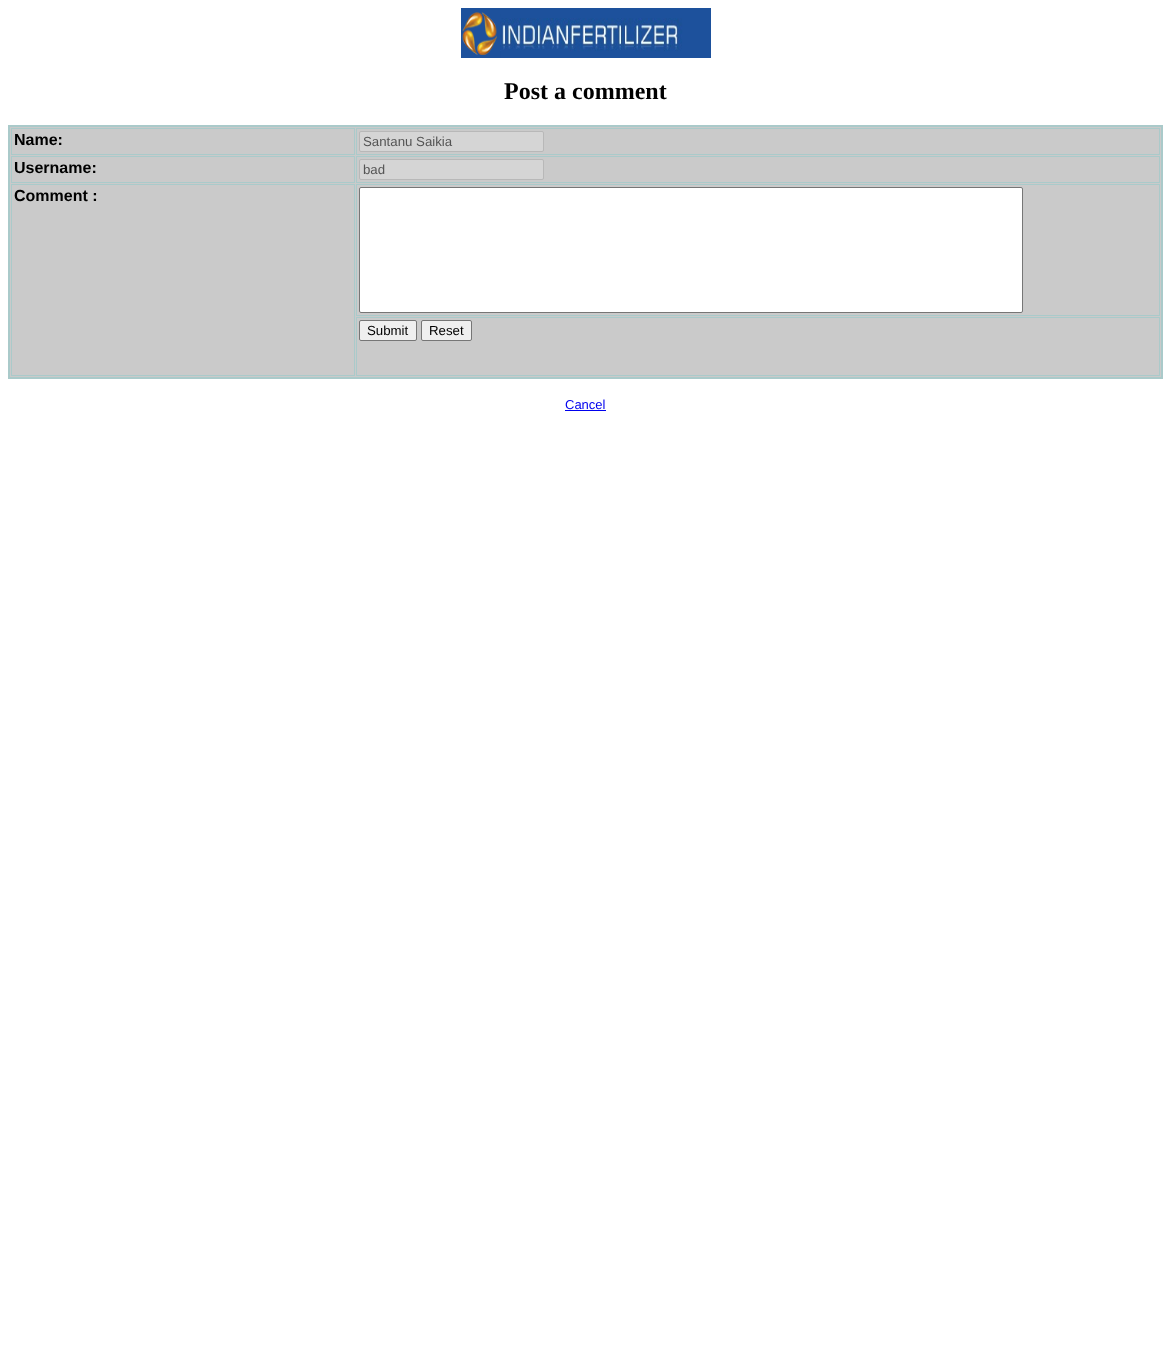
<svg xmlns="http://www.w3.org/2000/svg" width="1171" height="1372">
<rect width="100%" height="100%" fill="#fff"/>
<image x="461" y="8" width="250" height="50" href="media/1.png"/>
<text x="504" y="99" style="font-family:Liberation Serif;font-size:24px;font-weight:bold;fill:#000">Post a comment</text>
<rect x="9" y="126" width="1153" height="252" fill="#cacaca" stroke="#aacaca" stroke-width="2"/>
<rect x="11.5" y="128.5" width="343" height="26" fill="none" stroke="#aacaca"/>
<text x="14" y="145" style="font-family:Liberation Sans;font-size:16px;font-weight:bold;fill:#000">Name:</text>
<rect x="356.5" y="128.5" width="803" height="26" fill="none" stroke="#aacaca"/>
<rect x="359.5" y="131.5" width="184" height="20" rx="1.5" fill="#d5d5d5" stroke="#b8b8b8"/>
<text x="363" y="146" style="font-family:Liberation Sans;font-size:13.25px;fill:#545454">Santanu Saikia</text>
<rect x="11.5" y="156.5" width="343" height="26" fill="none" stroke="#aacaca"/>
<text x="14" y="173" style="font-family:Liberation Sans;font-size:16px;font-weight:bold;fill:#000">Username:</text>
<rect x="356.5" y="156.5" width="803" height="26" fill="none" stroke="#aacaca"/>
<rect x="359.5" y="159.5" width="184" height="20" rx="1.5" fill="#d5d5d5" stroke="#b8b8b8"/>
<text x="363" y="174" style="font-family:Liberation Sans;font-size:13.25px;fill:#545454">bad</text>
<rect x="11.5" y="184.5" width="343" height="191" fill="none" stroke="#aacaca"/>
<text x="14" y="201" style="font-family:Liberation Sans;font-size:16px;font-weight:bold;fill:#000">Comment :</text>
<rect x="356.5" y="184.5" width="803" height="131" fill="none" stroke="#aacaca"/>
<rect x="359.5" y="187.5" width="663" height="125" rx="1.5" fill="#fff" stroke="#767676"/>
<rect x="356.5" y="317.5" width="803" height="58" fill="none" stroke="#aacaca"/>
<rect x="359.5" y="320.5" width="57" height="20" rx="1.5" fill="#efefef" stroke="#767676"/>
<text x="367" y="335" style="font-family:Liberation Sans;font-size:13.25px;fill:#000">Submit</text>
<rect x="421.5" y="320.5" width="50" height="20" rx="1.5" fill="#efefef" stroke="#767676"/>
<text x="429" y="335" style="font-family:Liberation Sans;font-size:13.25px;fill:#000">Reset</text>
<text x="565" y="409" style="font-family:Liberation Sans;font-size:13px;fill:#00e">Cancel</text>
<rect x="565" y="410" width="41" height="1" fill="#00e"/>
</svg>
